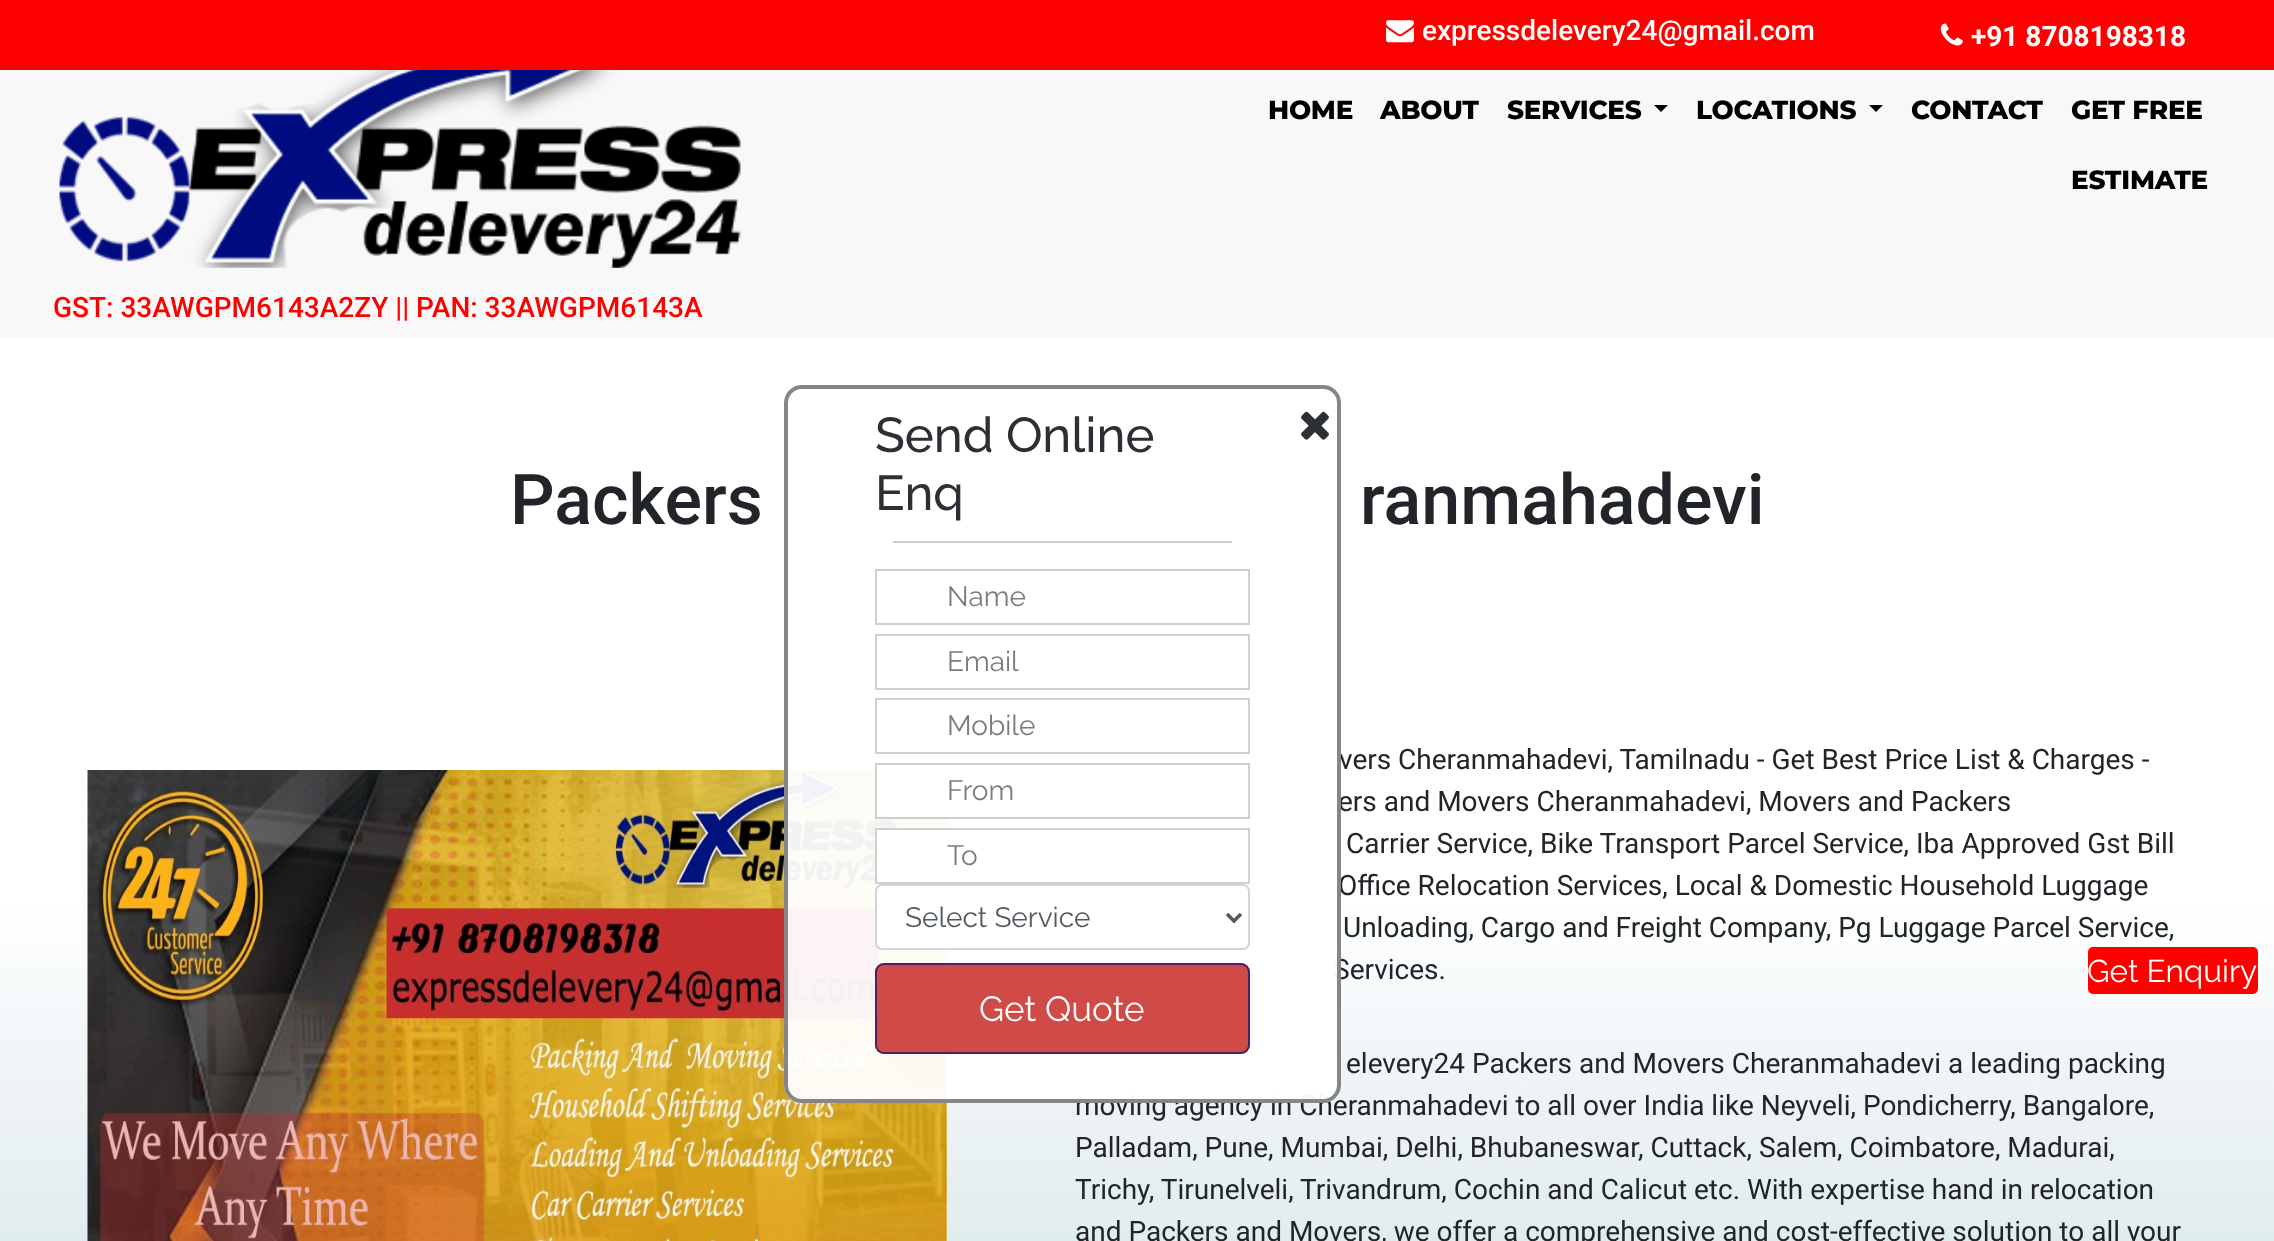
<svg xmlns="http://www.w3.org/2000/svg" width="2274" height="1241">
<rect width="100%" height="100%" fill="#f8f8f8"/>
<rect width="2274" height="70" fill="#f00"/>
<image x="1386" y="20" width="28" height="23" href="media/1.png"/>
<text x="1422" y="40" style="font-family:Roboto;font-size:28px;font-weight:500;fill:#fff">expressdelevery24@gmail.com</text>
<image x="1940" y="23" width="23" height="23" href="media/2.png"/>
<text x="1971" y="46" style="font-family:Roboto;font-size:28px;font-weight:bold;fill:#fff">+91 8708198318</text>
<image x="59" y="70" width="682" height="198" href="media/3.png"/>
<text x="1268" y="119" style="font-family:Montserrat;font-size:26.25px;font-weight:800;letter-spacing:-0.25px;fill:#000">HOME</text>
<text x="1380" y="119" style="font-family:Montserrat;font-size:26.25px;font-weight:800;letter-spacing:-0.25px;fill:#000">ABOUT</text>
<text x="1507" y="119" style="font-family:Montserrat;font-size:26.25px;font-weight:800;letter-spacing:-0.25px;fill:#000">SERVICES</text>
<path d="M1654 105h14l-7 7z" fill="#000"/>
<text x="1696" y="119" style="font-family:Montserrat;font-size:26.25px;font-weight:800;letter-spacing:-0.25px;fill:#000">LOCATIONS</text>
<path d="M1869 105h14l-7 7z" fill="#000"/>
<text x="1911" y="119" style="font-family:Montserrat;font-size:26.25px;font-weight:800;letter-spacing:-0.25px;fill:#000">CONTACT</text>
<text x="2071" y="119" style="font-family:Montserrat;font-size:26.25px;font-weight:800;letter-spacing:-0.25px;fill:#000">GET FREE</text>
<text x="2071" y="189" style="font-family:Montserrat;font-size:26.25px;font-weight:800;letter-spacing:-0.25px;fill:#000">ESTIMATE</text>
<text x="53" y="317" style="font-family:Roboto;font-size:28px;font-weight:500;fill:#f00">GST: 33AWGPM6143A2ZY || PAN: 33AWGPM6143A</text>
<image x="0" y="338" width="2274" height="903" href="media/5.png"/>
<image x="87" y="770" width="860" height="471" href="media/6.png"/>
<text x="1339" y="769" style="font-family:Roboto;font-size:28px;fill:#212529">vers Cheranmahadevi, Tamilnadu - Get Best Price List &amp; Charges -</text>
<text x="1338" y="811" style="font-family:Roboto;font-size:28px;fill:#212529">ers and Movers Cheranmahadevi, Movers and Packers</text>
<text x="1338" y="895" style="font-family:Roboto;font-size:28px;fill:#212529">Office Relocation Services, Local &amp; Domestic Household Luggage</text>
<text x="1333" y="979" style="font-family:Roboto;font-size:28px;fill:#212529">Services.</text>
<text x="1075" y="1115" style="font-family:Roboto;font-size:28px;fill:#212529">moving agency in Cheranmahadevi to all over India like Neyveli, Pondicherry, Bangalore,</text>
<rect x="784" y="385" width="557" height="718" rx="18" fill="#fffffff2"/>
<rect x="786" y="387" width="553" height="714" rx="16" fill="none" stroke="#808080f2" stroke-width="4"/>
<text x="875" y="452" style="font-family:Raleway;font-size:49px;font-weight:500;fill:#2c3034">Send Online</text>
<text x="875" y="510" style="font-family:Raleway;font-size:49px;font-weight:500;fill:#2c3034">Enq</text>
<image x="1301" y="411" width="28" height="29" href="media/4.png"/>
<rect x="893" y="541" width="339" height="2" fill="#cfcfcf"/>
<rect x="876" y="570" width="373" height="54" fill="none" stroke="#cfcfcf" stroke-width="2"/>
<text x="947" y="606" style="font-family:Raleway;font-size:28px;fill:#7c7c7c">Name</text>
<rect x="876" y="635" width="373" height="54" fill="none" stroke="#cfcfcf" stroke-width="2"/>
<text x="947" y="671" style="font-family:Raleway;font-size:28px;fill:#7c7c7c">Email</text>
<rect x="876" y="699" width="373" height="54" fill="none" stroke="#cfcfcf" stroke-width="2"/>
<text x="947" y="735" style="font-family:Raleway;font-size:28px;fill:#7c7c7c">Mobile</text>
<rect x="877" y="770" width="70" height="47" fill="#fffffff2"/>
<rect x="876" y="764" width="373" height="54" fill="none" stroke="#cfcfcf" stroke-width="2"/>
<text x="947" y="800" style="font-family:Raleway;font-size:28px;fill:#7c7c7c">From</text>
<rect x="877" y="830" width="70" height="52" fill="#fffffff2"/>
<rect x="876" y="829" width="373" height="54" fill="none" stroke="#cfcfcf" stroke-width="2"/>
<text x="947" y="865" style="font-family:Raleway;font-size:28px;fill:#7c7c7c">To</text>
<rect x="877" y="886" width="371" height="63" rx="5" fill="#fffffff2"/>
<rect x="876" y="885" width="373" height="64" rx="6" fill="none" stroke="#ced4daf2" stroke-width="2"/>
<path d="M1227 914l7 7l7-7" fill="none" stroke="#52595f" stroke-width="3.5"/>
<text x="905" y="927" style="font-family:Raleway;font-size:28px;fill:#52595f">Select Service</text>
<rect x="875" y="963" width="375" height="91" rx="9" fill="#cd413df2"/>
<rect x="876" y="964" width="373" height="89" rx="8" fill="none" stroke="#422067f2" stroke-width="2"/>
<text x="979" y="1021" style="font-family:Raleway;font-size:35px;fill:#fff">Get Quote</text>
<text x="510" y="524" style="font-family:Roboto;font-size:70px;font-weight:500;fill:#212529">Packers</text>
<text x="1360" y="524" style="font-family:Roboto;font-size:70px;font-weight:500;fill:#212529">ranmahadevi</text>
<text x="1346" y="853" style="font-family:Roboto;font-size:28px;fill:#212529">Carrier Service, Bike Transport Parcel Service, Iba Approved Gst Bill</text>
<text x="1343" y="937" style="font-family:Roboto;font-size:28px;fill:#212529">Unloading, Cargo and Freight Company, Pg Luggage Parcel Service,</text>
<text x="1346" y="1073" style="font-family:Roboto;font-size:28px;fill:#212529">elevery24 Packers and Movers Cheranmahadevi a leading packing</text>
<text x="1075" y="1157" style="font-family:Roboto;font-size:28px;fill:#212529">Palladam, Pune, Mumbai, Delhi, Bhubaneswar, Cuttack, Salem, Coimbatore, Madurai,</text>
<text x="1075" y="1199" style="font-family:Roboto;font-size:28px;fill:#212529">Trichy, Tirunelveli, Trivandrum, Cochin and Calicut etc. With expertise hand in relocation</text>
<text x="1075" y="1241" style="font-family:Roboto;font-size:28px;fill:#212529">and Packers and Movers, we offer a comprehensive and cost-effective solution to all your</text>
<rect x="2088" y="947" width="170" height="47" rx="5" fill="#f00"/>
<text x="2087" y="982" style="font-family:Raleway;font-size:31.5px;fill:#fff">Get Enquiry</text>
</svg>
